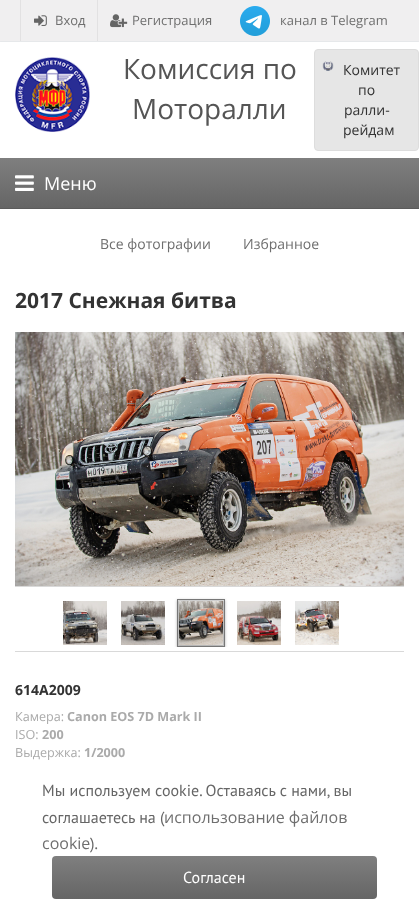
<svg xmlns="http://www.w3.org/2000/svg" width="419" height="914">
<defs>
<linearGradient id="g1" gradientUnits="userSpaceOnUse" x1="210" y1="158" x2="210" y2="208"><stop offset="0" stop-color="#7f7f7f"/><stop offset="1" stop-color="#656565"/></linearGradient>
<clipPath id="clip1"><rect x="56" y="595" width="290" height="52"/></clipPath>
<linearGradient id="g2" gradientUnits="userSpaceOnUse" x1="215" y1="856" x2="215" y2="899"><stop offset="0" stop-color="#7f7f7f"/><stop offset="1" stop-color="#656565"/></linearGradient>
</defs>
<rect width="100%" height="100%" fill="#fff"/>
<rect width="419" height="42" fill="#f0eff0"/>
<rect y="41" width="419" height="1" rx="0.5" fill="#e6e8ea"/>
<rect x="20" width="1" height="41" fill="#e2e1e2"/>
<image x="34" y="15" width="13" height="11" href="media/1.png"/>
<text x="55" y="25" style="font-family:Open Sans;font-size:13px;fill:#6f6f6f">Вход</text>
<rect x="97" width="1" height="41" fill="#e2e1e2"/>
<image x="110" y="14" width="18" height="14" href="media/2.png"/>
<text x="132" y="25" style="font-family:Open Sans;font-size:13px;fill:#6f6f6f">Регистрация</text>
<image x="240" y="6" width="30" height="30" href="media/3.png"/>
<text x="280" y="25" style="font-family:Open Sans;font-size:13px;fill:#6f6f6f">канал в Telegram</text>
<image x="15" y="57" width="75" height="75" href="media/4.png"/>
<text x="123" y="79" style="font-family:Open Sans;font-size:28px;fill:#555">Комиссия по</text>
<text x="132" y="119" style="font-family:Open Sans;font-size:28px;fill:#555">Моторалли</text>
<rect x="314.5" y="49.5" width="104" height="101" rx="3.5" fill="#e6e6e6" stroke="#ddd"/>
<image x="322" y="61" width="12" height="10" href="media/5.png"/>
<text x="343" y="75" style="font-family:Open Sans;font-size:14px;fill:#333">Комитет</text>
<text x="358" y="95" style="font-family:Open Sans;font-size:14px;fill:#333">по</text>
<text x="344" y="115" style="font-family:Open Sans;font-size:14px;fill:#333">ралли-</text>
<text x="343" y="135" style="font-family:Open Sans;font-size:14px;fill:#333">рейдам</text>
<rect y="158" width="419" height="50" fill="url(#g1)"/>
<rect y="208" width="419" height="1" fill="#5b5b5b"/>
<image x="15" y="175" width="19" height="16" href="media/6.png"/>
<text x="44" y="190" style="font-family:Open Sans;font-size:18px;fill:#fff">Меню</text>
<text x="100" y="249" style="font-family:Open Sans;font-size:14px;fill:#6f6f6f">Все фотографии</text>
<text x="243" y="249" style="font-family:Open Sans;font-size:14px;fill:#6f6f6f">Избранное</text>
<text x="15" y="308" style="font-family:Open Sans;font-size:21px;font-weight:bold;fill:#333">2017 Снежная битва</text>
<rect x="15" y="651" width="389" height="1" fill="#d9d9d9"/>
<image x="15" y="332" width="389" height="254" href="media/7.png"/>
<rect x="15" y="586" width="389" height="1" fill="#d9d9d9"/>
<image x="63" y="601" width="44" height="44" href="media/8.png"/>
<image x="121" y="601" width="44" height="44" href="media/9.png"/>
<g clip-path="url(#clip1)">
<rect x="177" y="600" width="48" height="48" fill="#0000004d" filter="blur(1.5px)"/>
</g>
<rect x="177.5" y="599.5" width="47" height="47" fill="none" stroke="#777"/>
<image x="179" y="601" width="44" height="44" href="media/10.png"/>
<image x="237" y="601" width="44" height="44" href="media/11.png"/>
<image x="295" y="601" width="44" height="44" href="media/12.png"/>
<text x="15" y="695" style="font-family:Open Sans;font-size:14px;font-weight:bold;fill:#333">614A2009</text>
<text x="15" y="721" style="font-family:Open Sans;font-size:12.6px;fill:#aaa">Камера:</text>
<text x="67" y="721" style="font-family:Open Sans;font-size:12.6px;font-weight:bold;fill:#aaa">Canon EOS 7D Mark II</text>
<text x="15" y="739" style="font-family:Open Sans;font-size:12.6px;fill:#aaa">ISO:</text>
<text x="42" y="739" style="font-family:Open Sans;font-size:12.6px;font-weight:bold;fill:#aaa">200</text>
<text x="15" y="757" style="font-family:Open Sans;font-size:12.6px;fill:#aaa">Выдержка:</text>
<text x="84" y="757" style="font-family:Open Sans;font-size:12.6px;font-weight:bold;fill:#aaa">1/2000</text>
<text x="42" y="796" style="font-family:PT Sans;font-size:16px;fill:#666">Мы используем cookie. Оставаясь с нами, вы</text>
<text x="42" y="823" style="font-family:PT Sans;font-size:16px;fill:#666">соглашаетесь на (</text>
<text x="164" y="823" style="font-family:Open Sans;font-size:16px;fill:#6f6f6f">использование файлов</text>
<text x="42" y="849" style="font-family:Open Sans;font-size:16px;fill:#6f6f6f">cookie</text>
<text x="90" y="849" style="font-family:PT Sans;font-size:16px;fill:#666">).</text>
<rect x="52" y="856" width="325" height="43" rx="4" fill="url(#g2)"/>
<text x="183" y="883" style="font-family:PT Sans;font-size:16px;fill:#fff">Согласен</text>
</svg>
